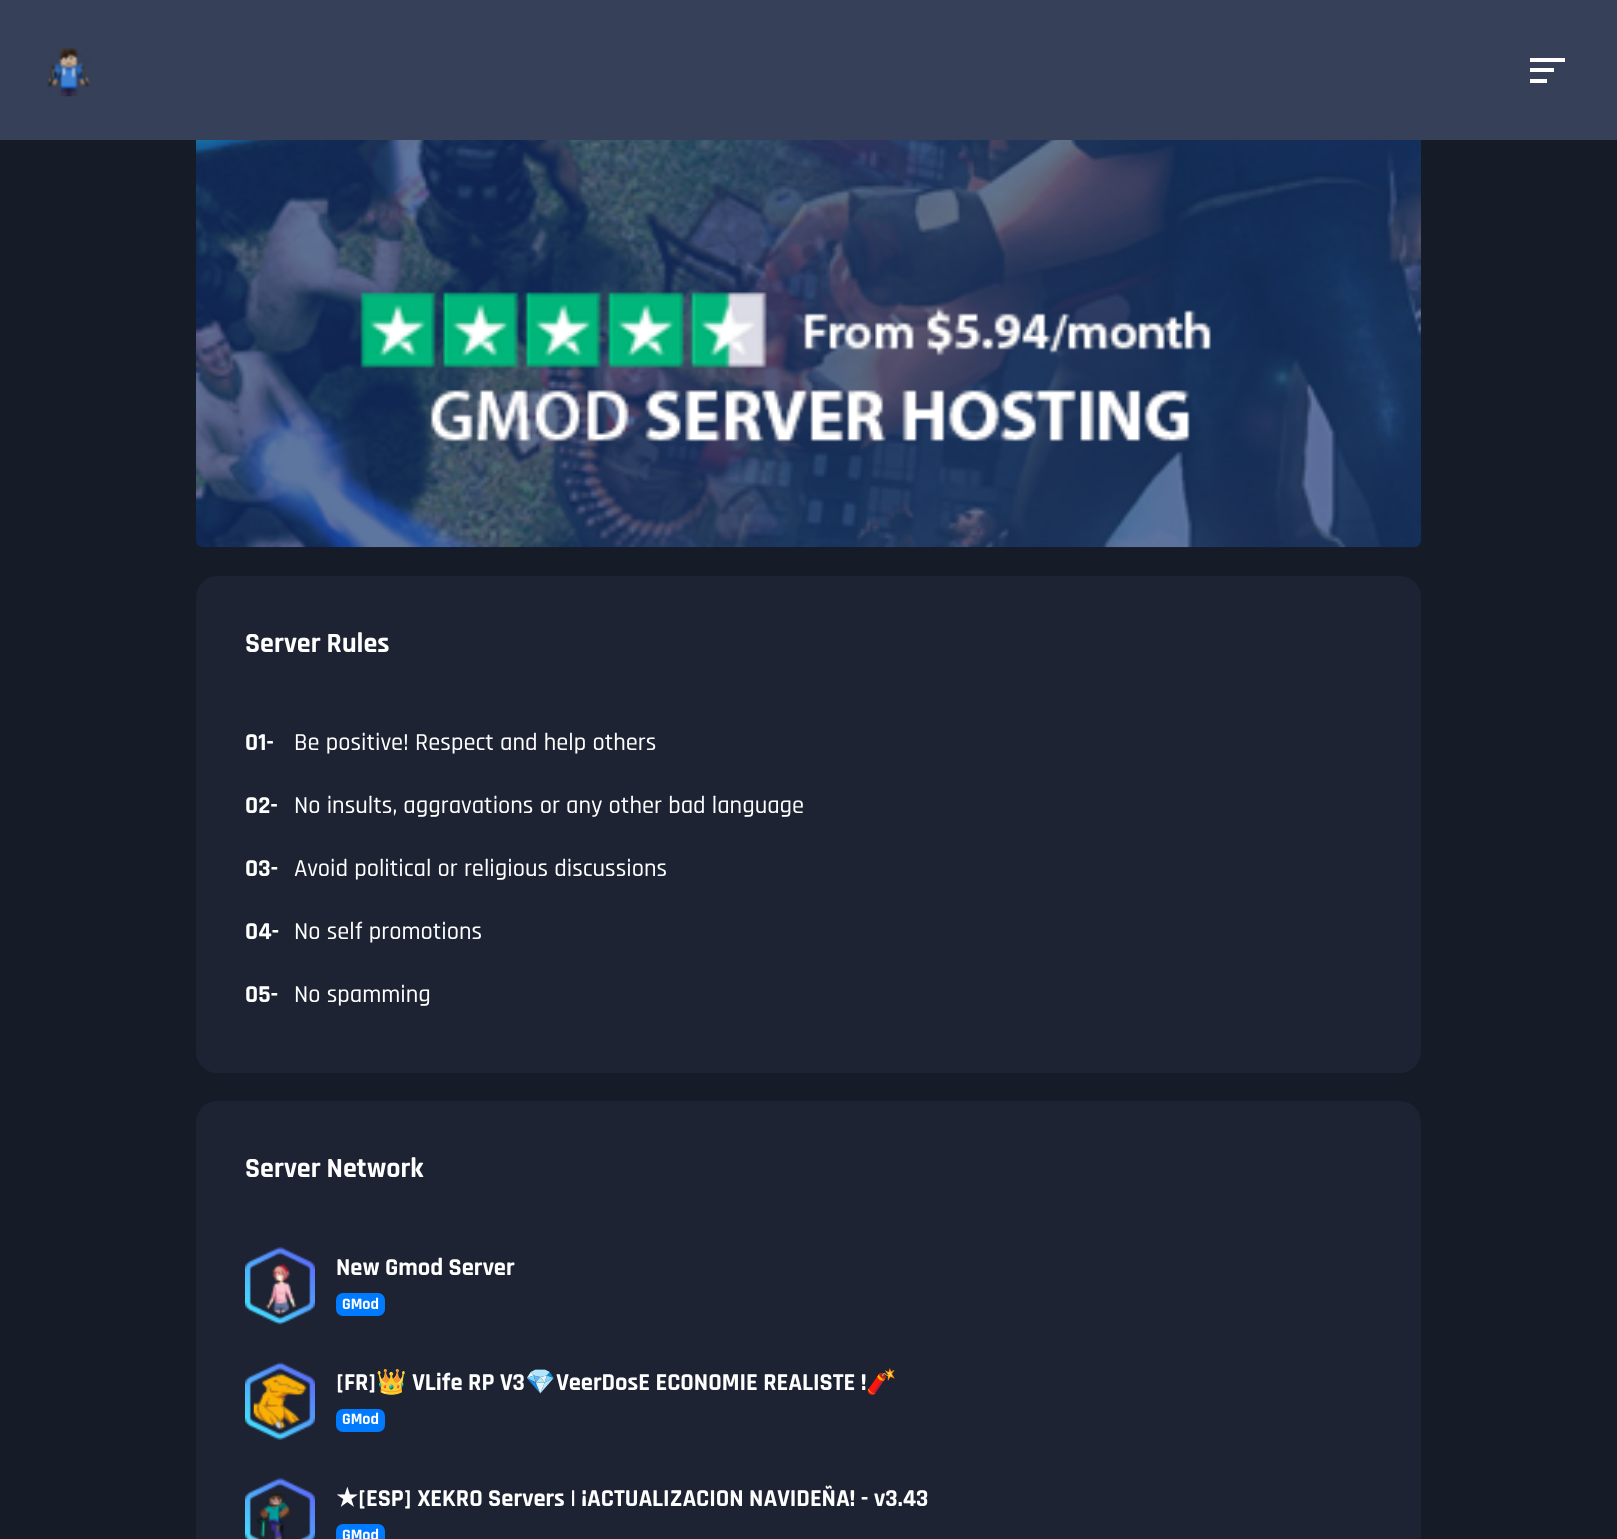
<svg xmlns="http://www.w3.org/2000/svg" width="1617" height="1539">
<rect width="100%" height="100%" fill="#161b28"/>
<rect width="1617" height="140" fill="#374059"/>
<image x="47" y="48" width="43" height="49" href="media/1.png"/>
<rect x="1530" y="58" width="35" height="4" fill="#fff"/>
<rect x="1530" y="68" width="24" height="4" fill="#fff"/>
<rect x="1530" y="79" width="17" height="4" fill="#fff"/>
<image x="196" y="140" width="1225" height="408" href="media/2.png"/>
<rect x="196" y="576" width="1225" height="497" rx="21" fill="#1d2333"/>
<text x="245" y="652" style="font-family:Rajdhani;font-size:28px;font-weight:bold;fill:#fff">Server Rules</text>
<text x="245" y="750" style="font-family:Rajdhani;font-size:24.5px;font-weight:bold;fill:#fff">01-</text>
<text x="294" y="750" style="font-family:Rajdhani;font-size:24.5px;font-weight:500;fill:#fff">Be positive! Respect and help others</text>
<text x="245" y="813" style="font-family:Rajdhani;font-size:24.5px;font-weight:bold;fill:#fff">02-</text>
<text x="294" y="813" style="font-family:Rajdhani;font-size:24.5px;font-weight:500;fill:#fff">No insults, aggravations or any other bad language</text>
<text x="245" y="876" style="font-family:Rajdhani;font-size:24.5px;font-weight:bold;fill:#fff">03-</text>
<text x="294" y="876" style="font-family:Rajdhani;font-size:24.5px;font-weight:500;fill:#fff">Avoid political or religious discussions</text>
<text x="245" y="939" style="font-family:Rajdhani;font-size:24.5px;font-weight:bold;fill:#fff">04-</text>
<text x="294" y="939" style="font-family:Rajdhani;font-size:24.5px;font-weight:500;fill:#fff">No self promotions</text>
<text x="245" y="1002" style="font-family:Rajdhani;font-size:24.5px;font-weight:bold;fill:#fff">05-</text>
<text x="294" y="1002" style="font-family:Rajdhani;font-size:24.5px;font-weight:500;fill:#fff">No spamming</text>
<rect x="196" y="1101" width="1225" height="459" rx="21" fill="#1d2333"/>
<text x="245" y="1177" style="font-family:Rajdhani;font-size:28px;font-weight:bold;fill:#fff">Server Network</text>
<image x="265" y="1262" width="32" height="52" href="media/4.png"/>
<image x="245" y="1247" width="70" height="78" href="media/3.png"/>
<text x="336" y="1275" style="font-family:Rajdhani;font-size:24.5px;font-weight:bold;fill:#fff">New Gmod Server</text>
<rect x="336" y="1293" width="49" height="23" rx="7" fill="#007bff"/>
<text x="342" y="1309" style="font-family:Rajdhani;font-size:16px;font-weight:bold;fill:#fff">GMod</text>
<image x="253" y="1373" width="54" height="57" href="media/6.png"/>
<image x="245" y="1362" width="70" height="78" href="media/5.png"/>
<text x="336" y="1390" style="font-family:Rajdhani;font-size:24.5px;font-weight:bold;fill:#fff">[FR]</text>
<text x="376" y="1390" style="font-family:Noto Color Emoji;font-size:24.5px;font-weight:bold;fill:#fff">👑</text>
<text x="412" y="1390" style="font-family:Rajdhani;font-size:24.5px;font-weight:bold;fill:#fff">VLife RP V3</text>
<text x="525" y="1390" style="font-family:Noto Color Emoji;font-size:24.5px;font-weight:bold;fill:#fff">💎</text>
<text x="556" y="1390" style="font-family:Rajdhani;font-size:24.5px;font-weight:bold;fill:#fff">VeerDosE ECONOMIE REALISTE !</text>
<text x="866" y="1390" style="font-family:Noto Color Emoji;font-size:24.5px;font-weight:bold;fill:#fff">🧨</text>
<rect x="336" y="1409" width="49" height="23" rx="7" fill="#007bff"/>
<text x="342" y="1424" style="font-family:Rajdhani;font-size:16px;font-weight:bold;fill:#fff">GMod</text>
<image x="257" y="1493" width="34" height="46" href="media/8.png"/>
<image x="245" y="1478" width="70" height="61" href="media/7.png"/>
<text x="336" y="1506" style="font-family:DejaVu Sans;font-size:24.5px;font-weight:bold;fill:#fff">★</text>
<text x="358" y="1506" style="font-family:Rajdhani;font-size:24.5px;font-weight:bold;fill:#fff">[ESP] XEKRO Servers | ¡ACTUALIZACION NAVIDEÑA! - v3.43</text>
<rect x="336" y="1524" width="49" height="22" rx="7" fill="#007bff"/>
<text x="342" y="1540" style="font-family:Rajdhani;font-size:16px;font-weight:bold;fill:#fff">GMod</text>
</svg>
